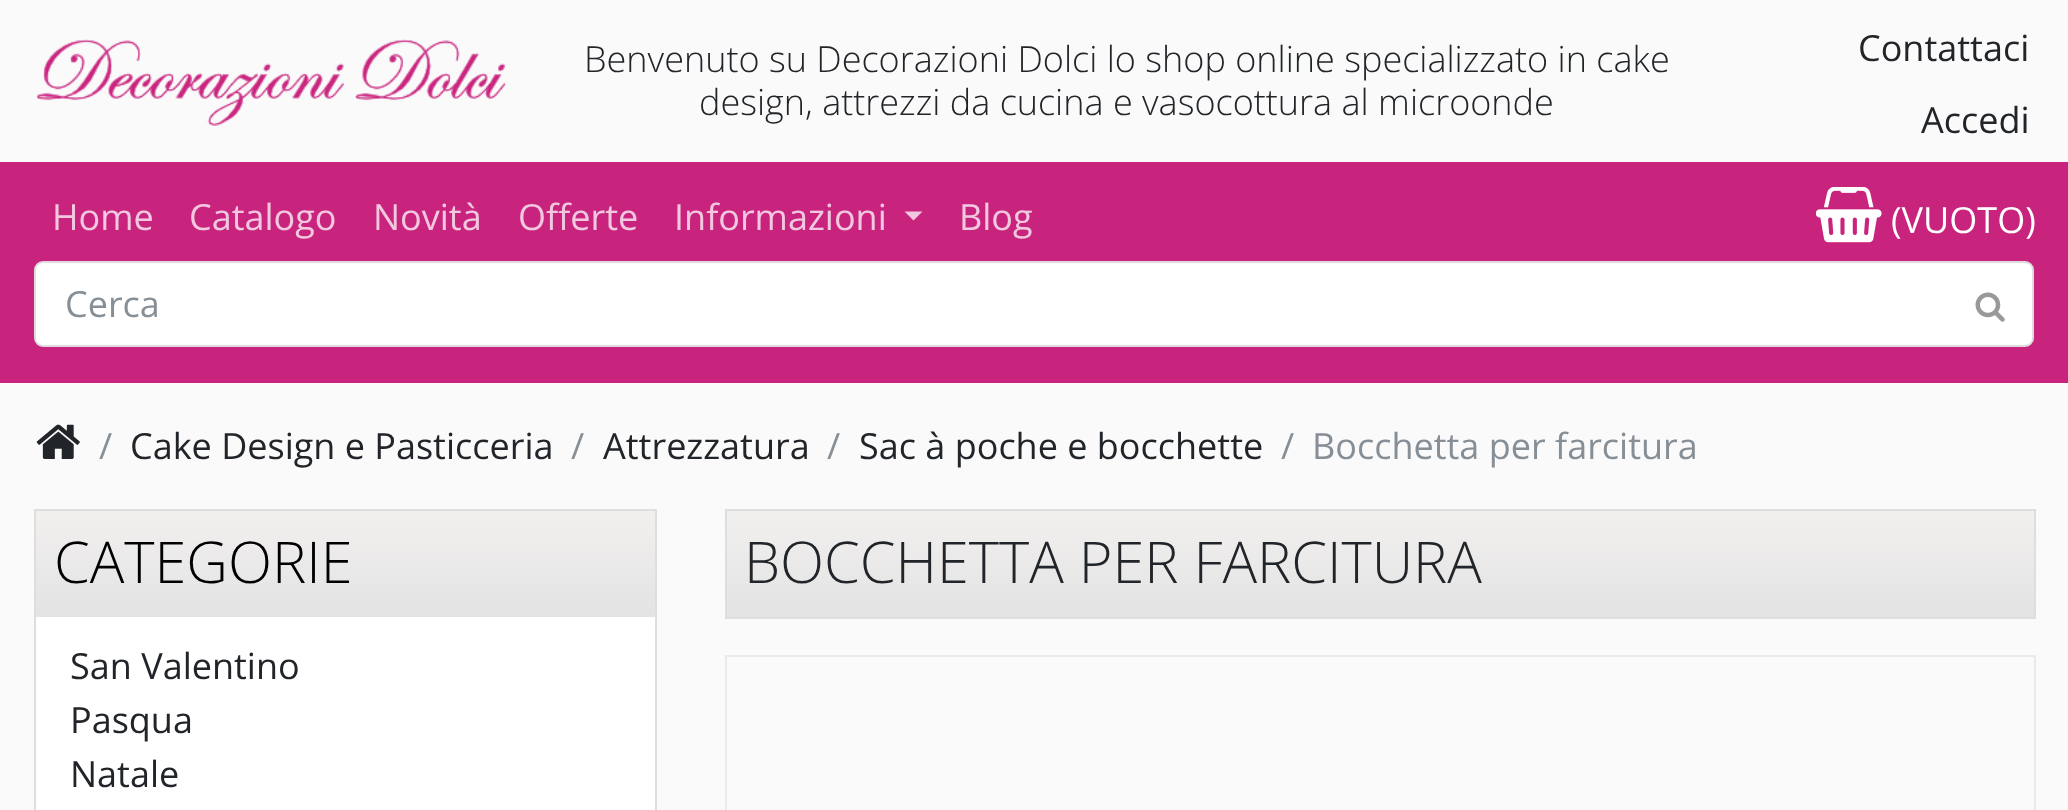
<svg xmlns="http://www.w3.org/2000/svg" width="2068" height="810">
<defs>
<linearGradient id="g1" gradientUnits="userSpaceOnUse" x1="345" y1="511" x2="345" y2="617"><stop offset="0" stop-color="#f2f0ef"/><stop offset="1" stop-color="#e3e3e3"/></linearGradient>
<linearGradient id="g2" gradientUnits="userSpaceOnUse" x1="1380" y1="511" x2="1380" y2="617"><stop offset="0" stop-color="#f2f0ef"/><stop offset="1" stop-color="#e3e3e3"/></linearGradient>
</defs>
<rect width="100%" height="100%" fill="#fafafa"/>
<image x="36" y="39" width="470" height="87" href="media/1.png"/>
<text x="584" y="72" style="font-family:Open Sans;font-size:36px;font-weight:300;fill:#212529">Benvenuto su Decorazioni Dolci lo shop online specializzato in cake</text>
<text x="699" y="115" style="font-family:Open Sans;font-size:36px;font-weight:300;fill:#212529">design, attrezzi da cucina e vasocottura al microonde</text>
<text x="1858" y="61" style="font-family:Open Sans;font-size:36px;fill:#212529">Contattaci</text>
<text x="1921" y="133" style="font-family:Open Sans;font-size:36px;fill:#212529">Accedi</text>
<rect y="162" width="2068" height="221" fill="#c8247e"/>
<text x="52" y="230" style="font-family:Open Sans;font-size:36px;fill:#f1c8df">Home</text>
<text x="189" y="230" style="font-family:Open Sans;font-size:36px;fill:#f1c8df">Catalogo</text>
<text x="373" y="230" style="font-family:Open Sans;font-size:36px;fill:#f1c8df">Novità</text>
<text x="518" y="230" style="font-family:Open Sans;font-size:36px;fill:#f1c8df">Offerte</text>
<text x="674" y="230" style="font-family:Open Sans;font-size:36px;fill:#f1c8df">Informazioni</text>
<path d="M904.5 211.5h18l-9 9z" fill="#f1c8df"/>
<text x="959" y="230" style="font-family:Open Sans;font-size:36px;fill:#f1c8df">Blog</text>
<image x="1816" y="187" width="66" height="56" href="media/2.png"/>
<text x="1891" y="233" style="font-family:Open Sans;font-size:36px;fill:#fff">(VUOTO)</text>
<rect x="35" y="262" width="1998" height="84" rx="8" fill="#fff" stroke="#ddd" stroke-width="2"/>
<text x="65" y="317" style="font-family:Open Sans;font-size:36px;fill:#868e96">Cerca</text>
<image x="1975" y="292" width="30" height="30" href="media/3.png"/>
<image x="36" y="424" width="44" height="35" href="media/4.png"/>
<text x="99" y="459" style="font-family:Open Sans;font-size:36px;fill:#868e96">/</text>
<text x="130" y="459" style="font-family:Open Sans;font-size:36px;fill:#212529">Cake Design e Pasticceria</text>
<text x="571" y="459" style="font-family:Open Sans;font-size:36px;fill:#868e96">/</text>
<text x="603" y="459" style="font-family:Open Sans;font-size:36px;fill:#212529">Attrezzatura</text>
<text x="827" y="459" style="font-family:Open Sans;font-size:36px;fill:#868e96">/</text>
<text x="859" y="459" style="font-family:Open Sans;font-size:36px;fill:#212529">Sac à poche e bocchette</text>
<text x="1281" y="459" style="font-family:Open Sans;font-size:36px;fill:#868e96">/</text>
<text x="1312" y="459" style="font-family:Open Sans;font-size:36px;fill:#868e96">Bocchetta per farcitura</text>
<rect x="35" y="510" width="621" height="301" fill="none" stroke="#dedede" stroke-width="2"/>
<rect x="36" y="511" width="619" height="106" fill="url(#g1)"/>
<text x="54" y="583" style="font-family:Open Sans;font-size:57.6px;font-weight:300;fill:#000">CATEGORIE</text>
<rect x="36" y="617" width="619" height="193" fill="#fff"/>
<text x="70" y="679" style="font-family:Open Sans;font-size:36px;fill:#212529">San Valentino</text>
<text x="70" y="733" style="font-family:Open Sans;font-size:36px;fill:#212529">Pasqua</text>
<text x="70" y="787" style="font-family:Open Sans;font-size:36px;fill:#212529">Natale</text>
<rect x="727" y="511" width="1307" height="106" fill="url(#g2)"/>
<rect x="726" y="510" width="1309" height="108" fill="none" stroke="#dedede" stroke-width="2"/>
<text x="744" y="583" style="font-family:Open Sans;font-size:57.6px;font-weight:300;fill:#212529">BOCCHETTA PER FARCITURA</text>
<rect x="726" y="656" width="1309" height="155" fill="none" stroke="#eaeaea" stroke-width="2"/>
</svg>
